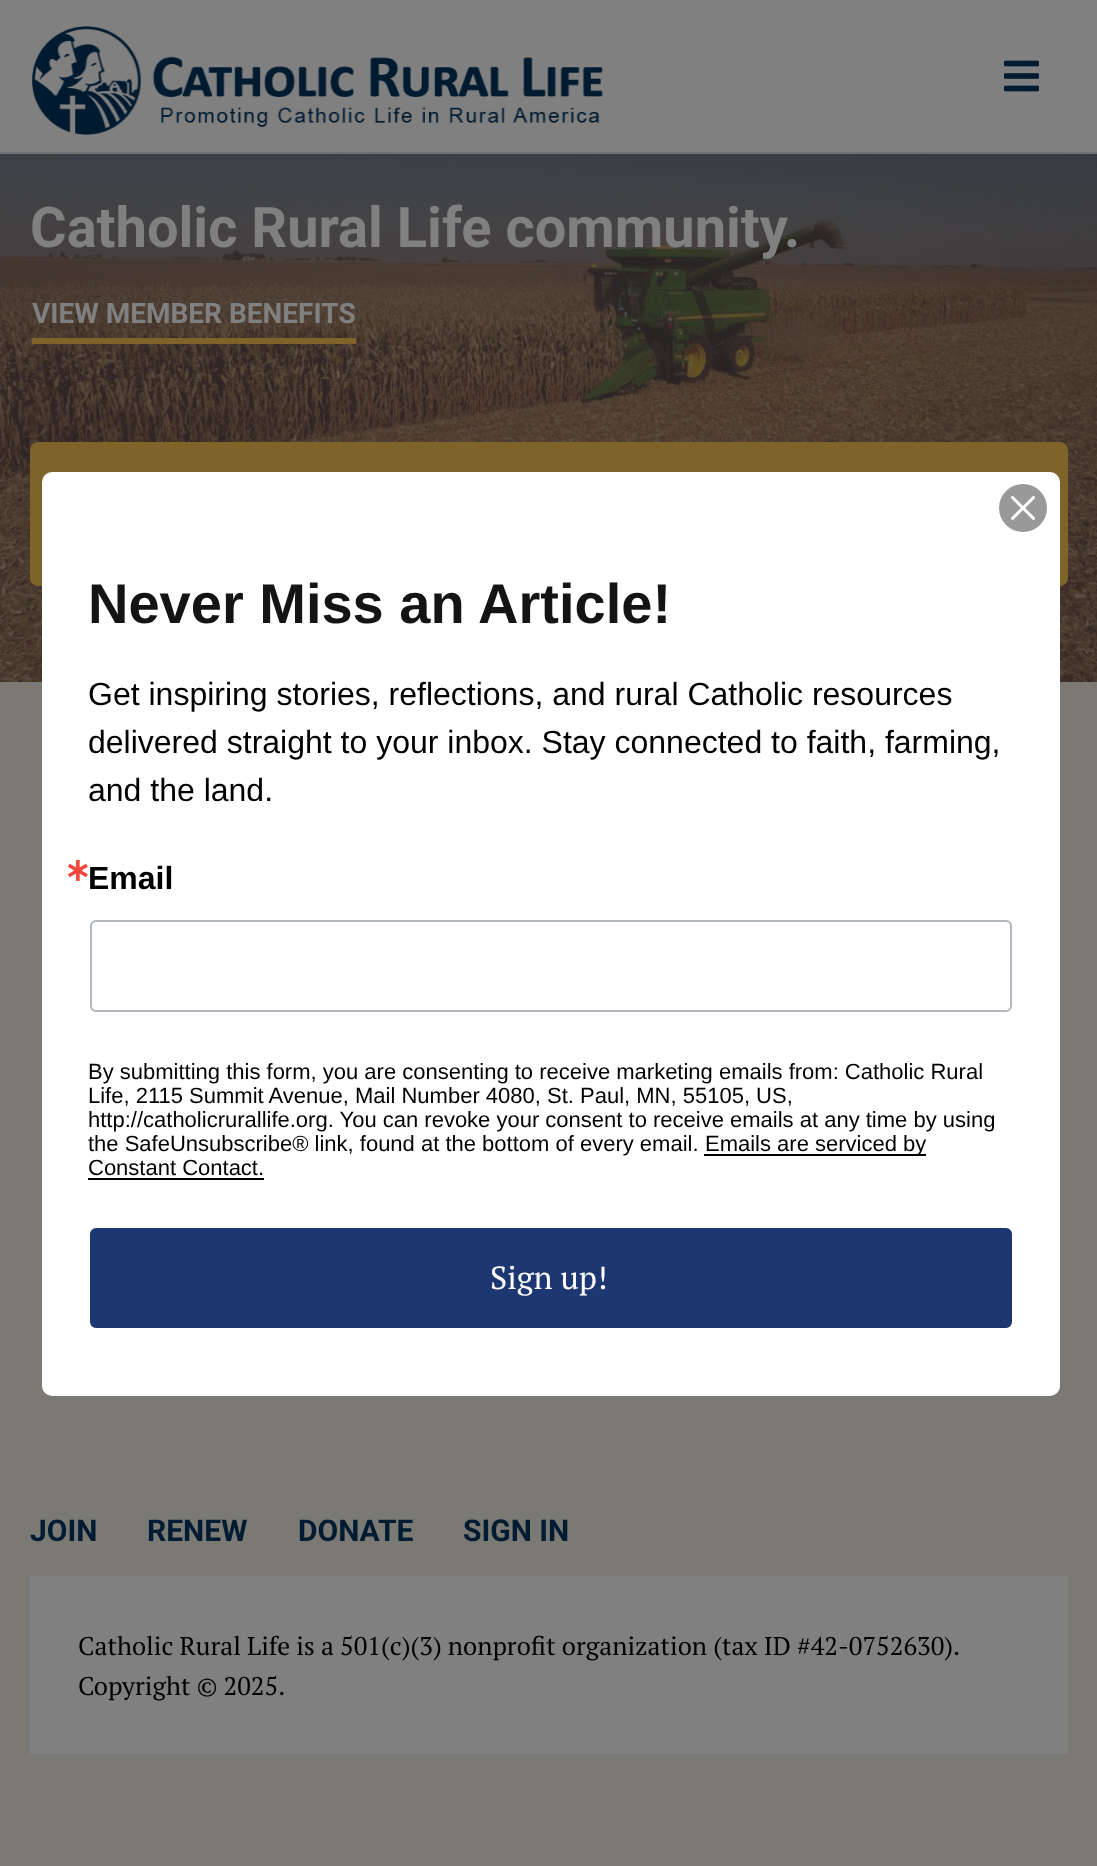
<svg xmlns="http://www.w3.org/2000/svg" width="1097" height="1866">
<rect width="100%" height="100%" fill="#fff"/>
<rect width="1097" height="152" fill="#808080"/>
<rect y="152" width="1097" height="2" fill="#6f7173"/>
<image x="32" y="26" width="571" height="109" href="media/1.png"/>
<image x="1004" y="60" width="35" height="32" href="media/2.png"/>
<image x="0" y="154" width="1097" height="528" href="media/3.png"/>
<text x="30" y="247" style="font-family:Roboto;font-size:56px;font-weight:bold;fill:#808080">Catholic Rural Life community.</text>
<rect x="32" y="338" width="324" height="6" fill="#7e6429"/>
<text x="32" y="323" style="font-family:Roboto;font-size:28px;font-weight:bold;fill:#808080">VIEW MEMBER BENEFITS</text>
<rect x="30" y="442" width="1038" height="144" rx="8" fill="#7e6429"/>
<rect y="682" width="1097" height="1184" fill="#7b7974"/>
<rect x="42" y="472" width="1018" height="924" rx="10" fill="#fff"/>
<image x="999" y="484" width="48" height="48" href="media/4.png"/>
<text x="88" y="623" style="font-family:Liberation Sans;font-size:56px;font-weight:bold;fill:#141414">Never Miss an Article!</text>
<text x="88" y="705" style="font-family:Liberation Sans;font-size:32px;fill:#000">Get inspiring stories, reflections, and rural Catholic resources</text>
<text x="88" y="753" style="font-family:Liberation Sans;font-size:32px;fill:#000">delivered straight to your inbox. Stay connected to faith, farming,</text>
<text x="88" y="801" style="font-family:Liberation Sans;font-size:32px;fill:#000">and the land.</text>
<text x="64" y="881" style="font-family:DejaVu Sans;font-size:32px;font-weight:bold;fill:#f5463b">∗</text>
<text x="88" y="889" style="font-family:Liberation Sans;font-size:32px;font-weight:bold;fill:#000">Email</text>
<rect x="91" y="921" width="920" height="90" rx="5" fill="none" stroke="#b0b6bb" stroke-width="2"/>
<text x="88" y="1079" style="font-family:Liberation Sans;font-size:22px;fill:#000">By submitting this form, you are consenting to receive marketing emails from: Catholic Rural</text>
<text x="88" y="1103" style="font-family:Liberation Sans;font-size:22px;fill:#000">Life, 2115 Summit Avenue, Mail Number 4080, St. Paul, MN, 55105, US,</text>
<text x="88" y="1127" style="font-family:Liberation Sans;font-size:22px;fill:#000">http://catholicrurallife.org. You can revoke your consent to receive emails at any time by using</text>
<text x="88" y="1151" style="font-family:Liberation Sans;font-size:22px;fill:#000">the SafeUnsubscribe® link, found at the bottom of every email.</text>
<rect x="704" y="1154" width="222" height="2" fill="#000"/>
<text x="705" y="1151" style="font-family:Liberation Sans;font-size:22px;fill:#000">Emails are serviced by</text>
<text x="88" y="1175" style="font-family:Liberation Sans;font-size:22px;fill:#000">Constant Contact.</text>
<rect x="88" y="1178" width="176" height="2" fill="#000"/>
<rect x="91" y="1229" width="920" height="98" rx="5" fill="#1c3771" stroke="#1c3771" stroke-width="2"/>
<text x="490" y="1289" style="font-family:PT Serif;font-size:32px;fill:#fff">Sign up!</text>
<text x="30" y="1541" style="font-family:Roboto;font-size:30px;font-weight:bold;fill:#001c33">JOIN</text>
<text x="147" y="1541" style="font-family:Roboto;font-size:30px;font-weight:bold;fill:#001c33">RENEW</text>
<text x="298" y="1541" style="font-family:Roboto;font-size:30px;font-weight:bold;fill:#001c33">DONATE</text>
<text x="463" y="1541" style="font-family:Roboto;font-size:30px;font-weight:bold;fill:#001c33">SIGN IN</text>
<rect x="30" y="1576" width="1038" height="178" fill="#808080"/>
<text x="78" y="1655" word-spacing="-0.1" style="font-family:PT Serif;font-size:25.6px;fill:#000">Catholic Rural Life is a 501(c)(3) nonprofit organization (tax ID #42-0752630).</text>
<text x="78" y="1695" style="font-family:PT Serif;font-size:25.6px;fill:#000">Copyright © 2025.</text>
</svg>
